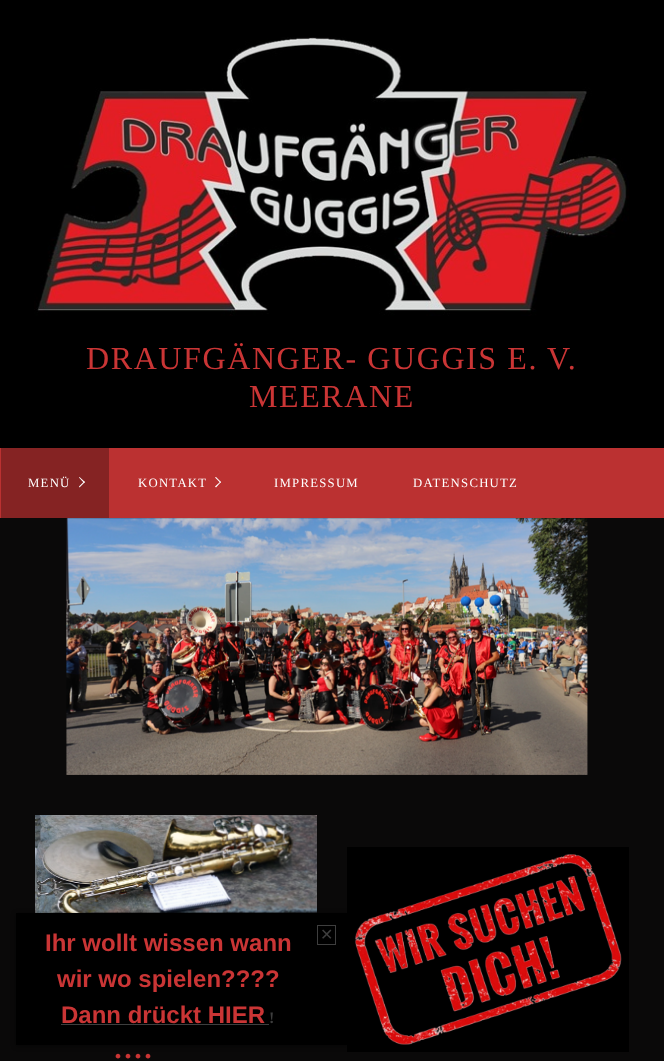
<svg xmlns="http://www.w3.org/2000/svg" width="664" height="1061">
<rect width="100%" height="100%" fill="#0a0909"/>
<rect width="664" height="448" fill="#000"/>
<image x="34" y="37" width="595" height="279" href="media/1.png"/>
<text x="86" y="369" style="font-family:Liberation Serif;font-size:32px;letter-spacing:1.6px;fill:#ca3535">DRAUFGÄNGER- GUGGIS E. V.</text>
<text x="249" y="407" style="font-family:Liberation Serif;font-size:32px;letter-spacing:1.6px;fill:#ca3535">MEERANE</text>
<rect y="448" width="664" height="70" fill="#bb3131"/>
<rect x="1" y="448" width="108" height="70" fill="#852323"/>
<text x="28" y="487" style="font-family:Liberation Serif;font-size:12.75px;letter-spacing:1.25px;fill:#fff">MENÜ</text>
<path d="M79.5 477l5.5 5l-1 1l-5-5.5z" fill="#fff"/>
<path d="M84 481.5l1 .5l-5.5 5.5l-.5-1z" fill="#fff"/>
<text x="138" y="487" style="font-family:Liberation Serif;font-size:12.75px;letter-spacing:1.25px;fill:#fff">KONTAKT</text>
<path d="M216 477l5 5l-.5 1l-5.5-5.5z" fill="#fff"/>
<path d="M220.5 481.5l.5 .5l-5 5.5l-1-1z" fill="#fff"/>
<text x="274" y="487" style="font-family:Liberation Serif;font-size:12.75px;letter-spacing:1.25px;fill:#fff">IMPRESSUM</text>
<text x="413" y="487" style="font-family:Liberation Serif;font-size:12.75px;letter-spacing:1.25px;fill:#fff">DATENSCHUTZ</text>
<image x="66" y="518" width="522" height="257" href="media/2.png"/>
<image x="347" y="847" width="282" height="205" href="media/3.png"/>
<image x="35" y="815" width="282" height="98" href="media/4.png"/>
<rect x="16" y="914" width="332" height="132" fill="#00000080" filter="blur(2.5px)"/>
<rect x="16" y="913" width="331" height="132" fill="#000"/>
<text x="45" y="951" style="font-family:Liberation Sans;font-size:24px;font-weight:bold;fill:#ca3535">Ihr wollt wissen wann</text>
<text x="57" y="987" style="font-family:Liberation Sans;font-size:24px;font-weight:bold;fill:#ca3535">wir wo spielen????</text>
<text x="61" y="1023" style="font-family:Liberation Sans;font-size:24px;font-weight:bold;fill:#ca3535">Dann drückt HIER</text>
<rect x="61" y="1024" width="208" height="1" fill="#3e3e3e"/>
<text x="269" y="1023" style="font-family:Liberation Serif;font-size:16px;font-weight:bold;fill:#3e3e3e">!</text>
<rect x="317.5" y="925.5" width="18" height="19" fill="none" stroke="#3e3e3e"/>
<text x="320" y="940" style="font-family:DejaVu Sans;font-size:16px;fill:#3e3e3e">✕</text>
<text x="113" y="1058" style="font-family:Liberation Serif;font-size:40px;fill:#ca3535">....</text>
</svg>
